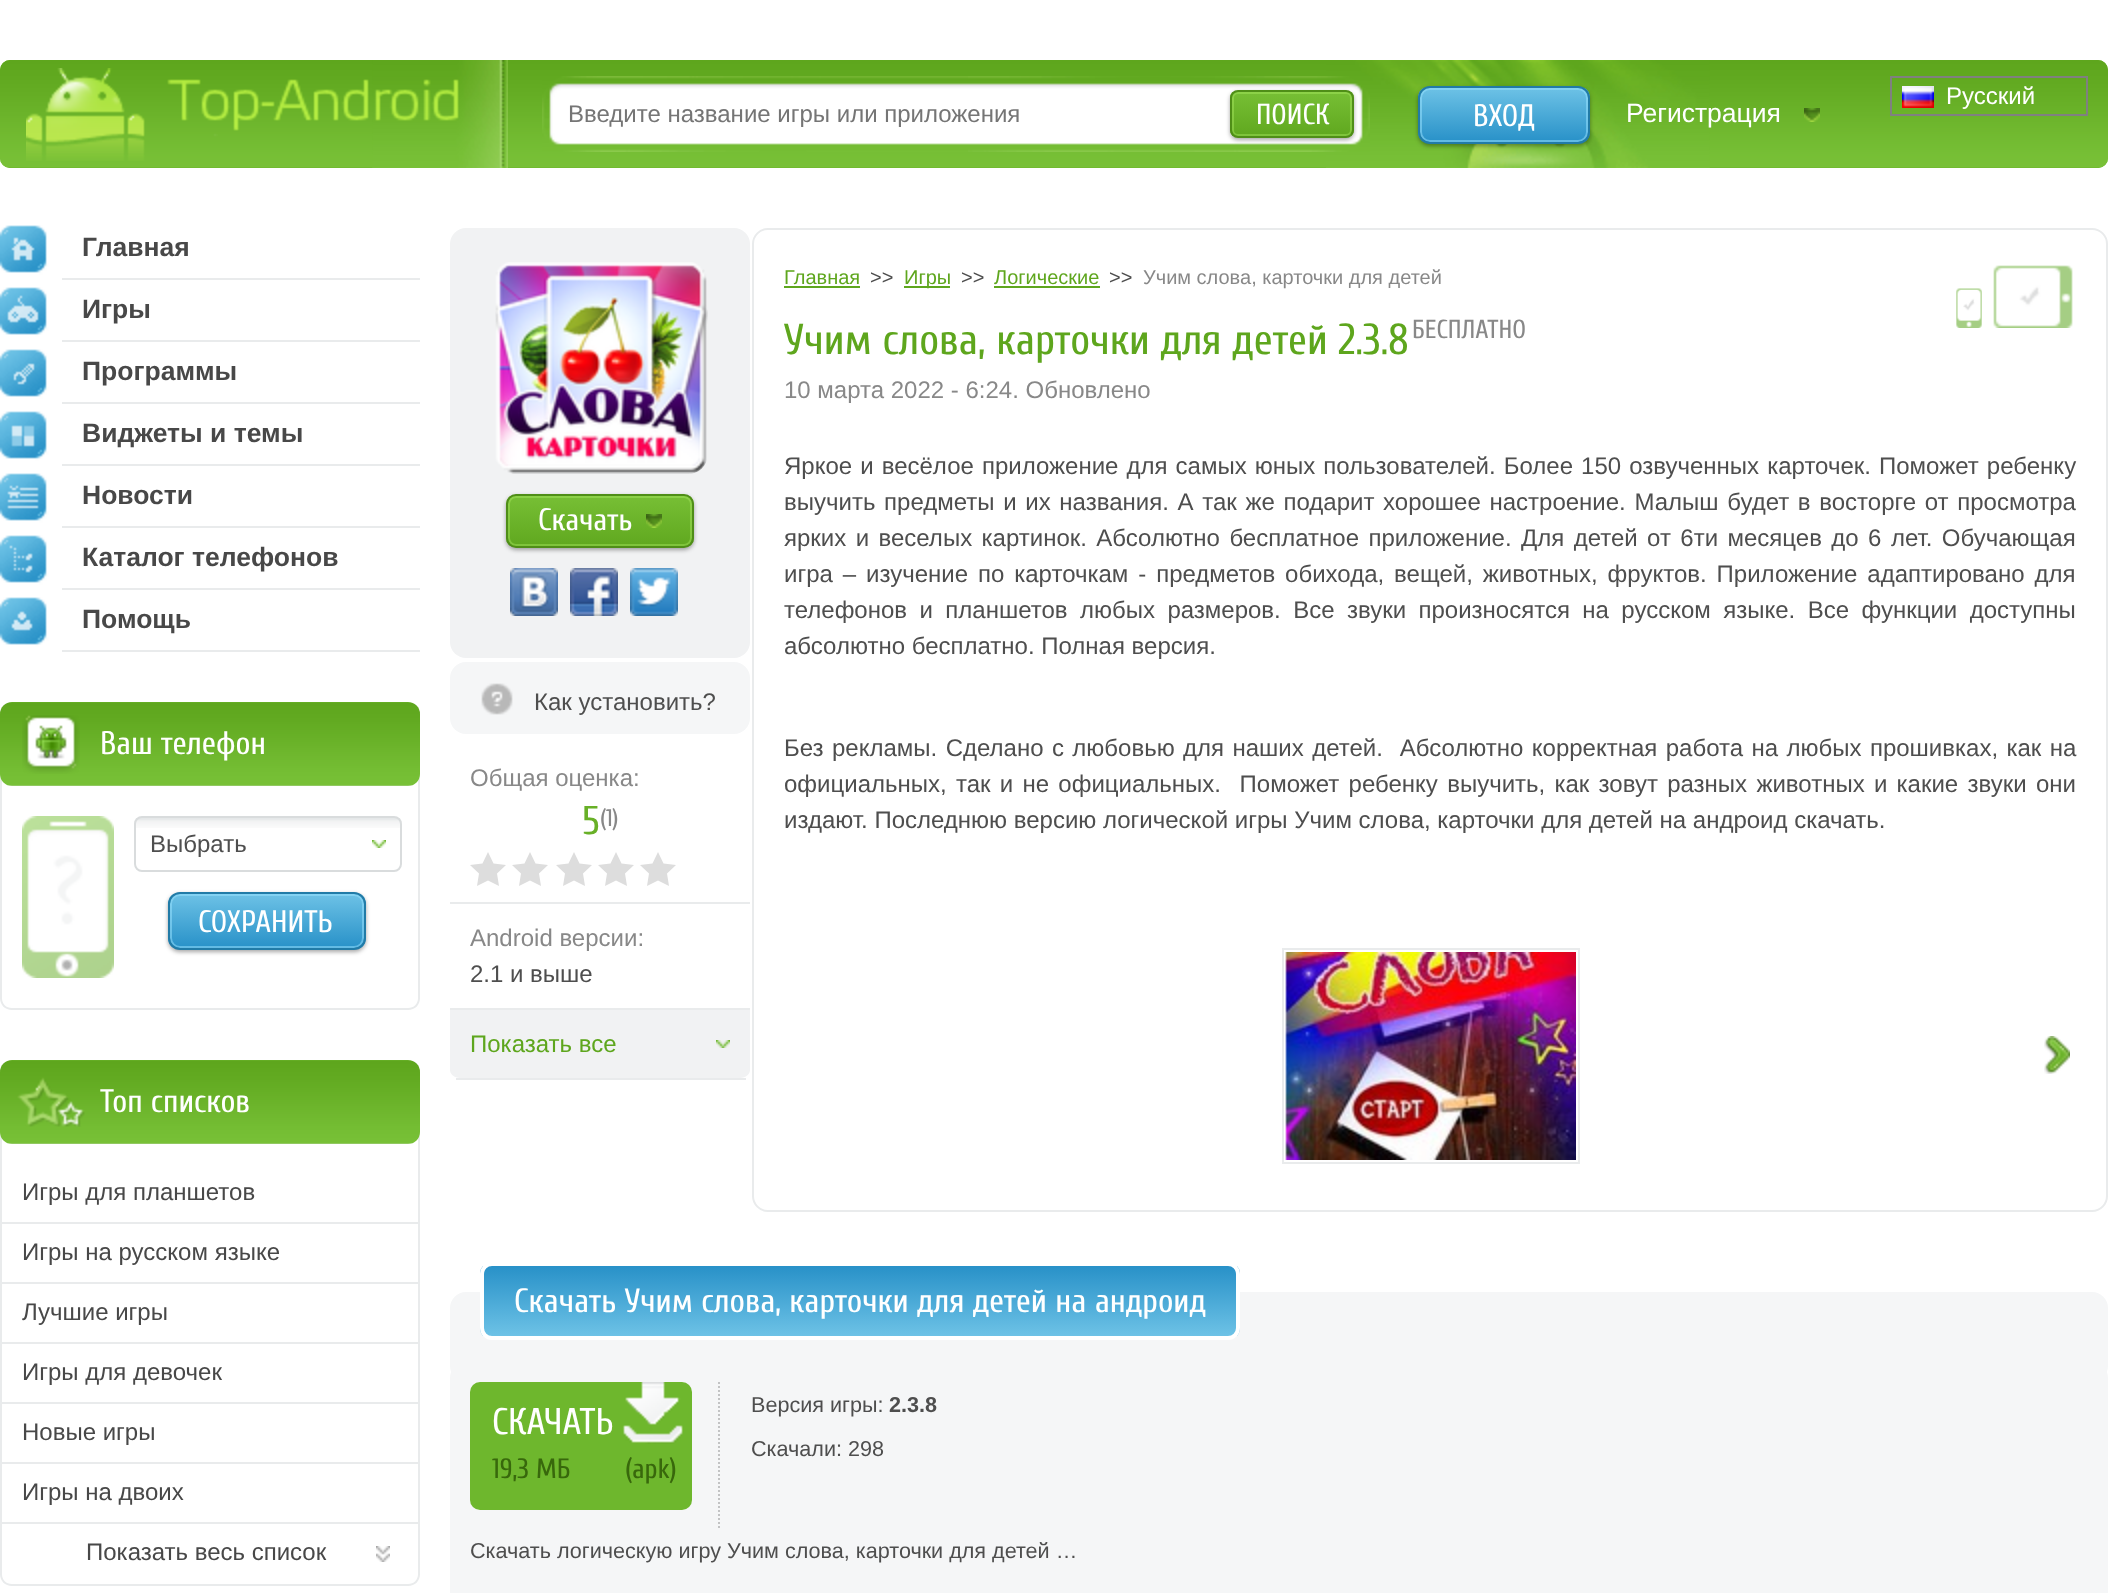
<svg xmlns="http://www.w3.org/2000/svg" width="2108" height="1593">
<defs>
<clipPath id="clip1"><rect x="1230" y="90" width="124" height="48" rx="8"/></clipPath>
<linearGradient id="g1" gradientUnits="userSpaceOnUse" x1="1292" y1="136" x2="1292" y2="92"><stop offset="0" stop-color="#60a81f"/><stop offset="1" stop-color="#77bf35"/></linearGradient>
<clipPath id="clip2"><rect x="1418" y="86" width="172" height="58" rx="12"/></clipPath>
<linearGradient id="g2" gradientUnits="userSpaceOnUse" x1="1504" y1="142" x2="1504" y2="88"><stop offset="0" stop-color="#2891c8"/><stop offset="1" stop-color="#6dc2e6"/></linearGradient>
<clipPath id="clip3"><rect x="168" y="892" width="198" height="58" rx="12"/></clipPath>
<linearGradient id="g3" gradientUnits="userSpaceOnUse" x1="267" y1="948" x2="267" y2="894"><stop offset="0" stop-color="#2891c8"/><stop offset="1" stop-color="#6dc2e6"/></linearGradient>
<clipPath id="clip4"><rect x="506" y="494" width="188" height="54" rx="10"/></clipPath>
<linearGradient id="g4" gradientUnits="userSpaceOnUse" x1="600" y1="546" x2="600" y2="496"><stop offset="0" stop-color="#60a81f"/><stop offset="1" stop-color="#77bf35"/></linearGradient>
<clipPath id="clip5"><rect x="480" y="1262" width="760" height="78" rx="12"/></clipPath>
<linearGradient id="g5" gradientUnits="userSpaceOnUse" x1="860" y1="1266" x2="860" y2="1336"><stop offset="0" stop-color="#2891c8"/><stop offset="1" stop-color="#6dc2e6"/></linearGradient>
</defs>
<rect width="100%" height="100%" fill="#fff"/>
<rect y="60" width="2108" height="108" rx="10" fill="#6db52b"/>
<image x="0" y="60" width="2108" height="108" href="media/1.png"/>
<image x="1326" y="60" width="384" height="108" href="media/2.png"/>
<image x="372" y="60" width="136" height="108" href="media/3.png"/>
<image x="26" y="68" width="433" height="93" href="media/4.png"/>
<image x="1902" y="86" width="32" height="22" href="media/5.png"/>
<rect x="1891" y="77" width="196" height="38" fill="none" stroke="#808080" stroke-width="2"/>
<text x="1946" y="104" style="font-family:Liberation Sans;font-size:24px;fill:#fff">Русский</text>
<image x="542" y="76" width="426" height="76" href="media/6.png"/>
<image x="968" y="76" width="402" height="76" href="media/7.png"/>
<text x="568" y="122" style="font-family:Liberation Sans;font-size:24px;fill:#757575">Введите название игры или приложения</text>
<rect x="1230" y="92" width="124" height="48" rx="8" fill="#00000059" filter="blur(2px)"/>
<g clip-path="url(#clip1)">
<rect x="1230" y="92" width="124" height="44" fill="url(#g1)"/>
</g>
<rect x="1233" y="93" width="118" height="42" rx="5" fill="none" stroke="#afed6766" stroke-width="2"/>
<rect x="1231" y="91" width="122" height="46" rx="7" fill="none" stroke="#4f8e17" stroke-width="2"/>
<text x="1256" y="124" style="font-family:Cuprum;font-size:29px;fill:#fff">ПОИСК</text>
<rect x="1418" y="88" width="172" height="58" rx="12" fill="#00000059" filter="blur(2px)"/>
<g clip-path="url(#clip2)">
<rect x="1418" y="88" width="172" height="54" fill="url(#g2)"/>
</g>
<rect x="1421" y="89" width="166" height="52" rx="9" fill="none" stroke="#9be4ff80" stroke-width="2"/>
<rect x="1419" y="87" width="170" height="56" rx="11" fill="none" stroke="#217ba7" stroke-width="2"/>
<text x="1473" y="126" style="font-family:Cuprum;font-size:31px;fill:#fff">ВХОД</text>
<image x="1804" y="108" width="16" height="14" href="media/8.png"/>
<text x="1626" y="122" style="font-family:Liberation Sans;font-size:26.5px;fill:#fff">Регистрация</text>
<rect x="62" y="278" width="358" height="2" fill="#e9ebec"/>
<image x="0" y="225" width="62" height="55" href="media/9.png"/>
<text x="82" y="256" style="font-family:Liberation Sans;font-size:26.5px;font-weight:bold;fill:#484848">Главная</text>
<rect x="62" y="340" width="358" height="2" fill="#e9ebec"/>
<image x="0" y="287" width="62" height="55" href="media/10.png"/>
<text x="82" y="318" style="font-family:Liberation Sans;font-size:26.5px;font-weight:bold;fill:#484848">Игры</text>
<rect x="62" y="402" width="358" height="2" fill="#e9ebec"/>
<image x="0" y="349" width="62" height="55" href="media/11.png"/>
<text x="82" y="380" style="font-family:Liberation Sans;font-size:26.5px;font-weight:bold;fill:#484848">Программы</text>
<rect x="62" y="464" width="358" height="2" fill="#e9ebec"/>
<image x="0" y="411" width="62" height="55" href="media/12.png"/>
<text x="82" y="442" style="font-family:Liberation Sans;font-size:26.5px;font-weight:bold;fill:#484848">Виджеты и темы</text>
<rect x="62" y="526" width="358" height="2" fill="#e9ebec"/>
<image x="0" y="473" width="62" height="55" href="media/13.png"/>
<text x="82" y="504" style="font-family:Liberation Sans;font-size:26.5px;font-weight:bold;fill:#484848">Новости</text>
<rect x="62" y="588" width="358" height="2" fill="#e9ebec"/>
<image x="0" y="535" width="62" height="55" href="media/14.png"/>
<text x="82" y="566" style="font-family:Liberation Sans;font-size:26.5px;font-weight:bold;fill:#484848">Каталог телефонов</text>
<rect x="62" y="650" width="358" height="2" fill="#e9ebec"/>
<image x="0" y="597" width="62" height="55" href="media/15.png"/>
<text x="82" y="628" style="font-family:Liberation Sans;font-size:26.5px;font-weight:bold;fill:#484848">Помощь</text>
<path d="M12 702h396c7 0 12 5 12 12v284c0 7-5 12-12 12h-396c-7 0-12-5-12-12v-284c0-7 5-12 12-12zm0 0h396c6 0 10 5 10 12v284c0 6-4 10-10 10h-396c-6 0-10-4-10-10v-284c0-7 4-12 10-12z" fill="#e9ebec" fill-rule="evenodd"/>
<image x="0" y="702" width="420" height="84" href="media/16.png"/>
<image x="22" y="715" width="58" height="59" href="media/17.png"/>
<text x="100" y="754" style="font-family:Cuprum;font-size:32.5px;fill:#fff">Ваш телефон</text>
<image x="22" y="816" width="92" height="162" href="media/18.png"/>
<image x="134" y="818" width="268" height="10" href="media/19.png"/>
<rect x="135" y="817" width="266" height="54" rx="7" fill="none" stroke="#d9dcdd" stroke-width="2"/>
<text x="150" y="852" style="font-family:Liberation Sans;font-size:24px;fill:#4e4e4e">Выбрать</text>
<image x="372" y="840" width="14" height="8" href="media/20.png"/>
<rect x="168" y="894" width="198" height="58" rx="12" fill="#00000059" filter="blur(2px)"/>
<g clip-path="url(#clip3)">
<rect x="168" y="894" width="198" height="54" fill="url(#g3)"/>
</g>
<rect x="171" y="895" width="192" height="52" rx="9" fill="none" stroke="#9be4ff80" stroke-width="2"/>
<rect x="169" y="893" width="196" height="56" rx="11" fill="none" stroke="#217ba7" stroke-width="2"/>
<text x="198" y="932" style="font-family:Cuprum;font-size:31px;fill:#fff">СОХРАНИТЬ</text>
<path d="M12 1060h396c7 0 12 5 12 12v502c0 7-5 12-12 12h-396c-7 0-12-5-12-12v-502c0-7 5-12 12-12zm0 0h396c6 0 10 5 10 12v502c0 6-4 10-10 10h-396c-6 0-10-4-10-10v-502c0-7 4-12 10-12z" fill="#e9ebec" fill-rule="evenodd"/>
<image x="0" y="1060" width="420" height="84" href="media/16.png"/>
<image x="17" y="1077" width="68" height="50" href="media/21.png"/>
<text x="100" y="1112" style="font-family:Cuprum;font-size:32.5px;fill:#fff">Топ списков</text>
<rect x="2" y="1222" width="416" height="2" fill="#e9ebec"/>
<text x="22" y="1200" style="font-family:Liberation Sans;font-size:24px;fill:#484848">Игры для планшетов</text>
<rect x="2" y="1282" width="416" height="2" fill="#e9ebec"/>
<text x="22" y="1260" style="font-family:Liberation Sans;font-size:24px;fill:#484848">Игры на русском языке</text>
<rect x="2" y="1342" width="416" height="2" fill="#e9ebec"/>
<text x="22" y="1320" style="font-family:Liberation Sans;font-size:24px;fill:#484848">Лучшие игры</text>
<rect x="2" y="1402" width="416" height="2" fill="#e9ebec"/>
<text x="22" y="1380" style="font-family:Liberation Sans;font-size:24px;fill:#484848">Игры для девочек</text>
<rect x="2" y="1462" width="416" height="2" fill="#e9ebec"/>
<text x="22" y="1440" style="font-family:Liberation Sans;font-size:24px;fill:#484848">Новые игры</text>
<text x="22" y="1500" style="font-family:Liberation Sans;font-size:24px;fill:#484848">Игры на двоих</text>
<image x="376" y="1546" width="14" height="16" href="media/22.png"/>
<rect y="1522" width="420" height="2" fill="#e9ebec"/>
<text x="86" y="1560" style="font-family:Liberation Sans;font-size:24px;fill:#484848">Показать весь список</text>
<rect x="450" y="228" width="300" height="430" rx="16" fill="#f1f2f3"/>
<image x="495" y="262" width="213" height="212" href="media/23.png"/>
<rect x="506" y="496" width="188" height="54" rx="10" fill="#00000059" filter="blur(2px)"/>
<g clip-path="url(#clip4)">
<rect x="506" y="496" width="188" height="50" fill="url(#g4)"/>
</g>
<rect x="509" y="497" width="182" height="48" rx="7" fill="none" stroke="#afed6766" stroke-width="2"/>
<rect x="507" y="495" width="186" height="52" rx="9" fill="none" stroke="#4f8e17" stroke-width="2"/>
<image x="646" y="514" width="16" height="14" href="media/24.png"/>
<text x="538" y="530" style="font-family:Cuprum;font-size:31px;fill:#fff">Скачать</text>
<image x="510" y="568" width="48" height="48" href="media/25.png"/>
<image x="570" y="568" width="48" height="48" href="media/26.png"/>
<image x="630" y="568" width="48" height="48" href="media/27.png"/>
<rect x="450" y="662" width="300" height="72" rx="16" fill="#f5f6f7"/>
<image x="481" y="683" width="32" height="32" href="media/28.png"/>
<text x="534" y="710" style="font-family:Liberation Sans;font-size:24px;fill:#4e4e4e">Как установить?</text>
<rect x="450" y="902" width="300" height="2" fill="#e9ebec"/>
<text x="470" y="786" style="font-family:Liberation Sans;font-size:24px;fill:#888">Общая оценка:</text>
<text x="582" y="834" style="font-family:Cuprum;font-size:40px;fill:#68b027">5</text>
<text x="600" y="826" style="font-family:Cuprum;font-size:24px;fill:#888">(1)</text>
<path d="M488 852l5.5 11.5l12.5 1.5l-9 8.5l2 12.5l-11-5.5l-11 5.5l2-12.5l-9-8.5l12.5-1.5" fill="#ddd"/>
<path d="M530 852l5.5 11.5l12.5 1.5l-9 8.5l2 12.5l-11-5.5l-11 5.5l2-12.5l-9-8.5l12.5-1.5" fill="#ddd"/>
<path d="M574 852l5.5 11.5l12.5 1.5l-9 8.5l2 12.5l-11-5.5l-11 5.5l2-12.5l-9-8.5l12.5-1.5" fill="#ddd"/>
<path d="M616 852l5.5 11.5l12.5 1.5l-9 8.5l2 12.5l-11-5.5l-11 5.5l2-12.5l-9-8.5l12.5-1.5" fill="#ddd"/>
<path d="M658 852l5.5 11.5l12.5 1.5l-9 8.5l2 12.5l-11-5.5l-11 5.5l2-12.5l-9-8.5l12.5-1.5" fill="#ddd"/>
<rect x="450" y="1008" width="300" height="2" fill="#e9ebec"/>
<text x="470" y="946" style="font-family:Liberation Sans;font-size:24px;fill:#888">Android версии:</text>
<text x="470" y="982" style="font-family:Liberation Sans;font-size:24px;fill:#4e4e4e">2.1 и выше</text>
<path d="M450 1010h300v60c0 4-4 8-10 8h-280c-6 0-10-4-10-8z" fill="#f1f2f3"/>
<rect x="456" y="1078" width="290" height="2" fill="#e9ebec"/>
<image x="716" y="1040" width="14" height="8" href="media/29.png"/>
<text x="470" y="1052" style="font-family:Liberation Sans;font-size:24px;fill:#5ea61d">Показать все</text>
<rect x="753" y="229" width="1354" height="982" rx="15" fill="none" stroke="#e9ebec" stroke-width="2"/>
<text x="784" y="284" style="font-family:Liberation Sans;font-size:20px;fill:#5ea61d">Главная</text>
<rect x="784" y="286" width="76" height="2" fill="#5ea61d"/>
<text x="870" y="284" style="font-family:Liberation Sans;font-size:20px;fill:#4e4e4e">&gt;&gt;</text>
<rect x="904" y="286" width="46" height="2" fill="#5ea61d"/>
<text x="904" y="284" style="font-family:Liberation Sans;font-size:20px;fill:#5ea61d">Игры</text>
<text x="961" y="284" style="font-family:Liberation Sans;font-size:20px;fill:#4e4e4e">&gt;&gt;</text>
<text x="994" y="284" style="font-family:Liberation Sans;font-size:20px;fill:#5ea61d">Логические</text>
<rect x="994" y="286" width="106" height="2" fill="#5ea61d"/>
<text x="1109" y="284" style="font-family:Liberation Sans;font-size:20px;fill:#4e4e4e">&gt;&gt;</text>
<text x="1143" y="284" style="font-family:Liberation Sans;font-size:20px;fill:#888">Учим слова, карточки для детей</text>
<text x="784" y="354" style="font-family:Cuprum;font-size:43.25px;fill:#5ea61d">Учим слова, карточки для детей 2.3.8</text>
<text x="1412" y="338" style="font-family:Cuprum;font-size:26px;fill:#888">БЕСПЛАТНО</text>
<text x="784" y="398" style="font-family:Liberation Sans;font-size:24px;fill:#888">10 марта 2022 - 6:24. Обновлено</text>
<image x="1956" y="288" width="26" height="40" href="media/30.png"/>
<image x="1993" y="265" width="80" height="63" href="media/31.png"/>
<text x="784" y="474" word-spacing="1.4" style="font-family:Liberation Sans;font-size:24px;fill:#4e4e4e">Яркое и весёлое приложение для самых юных пользователей. Более 150 озвученных карточек. Поможет ребенку</text>
<text x="784" y="510" word-spacing="2" style="font-family:Liberation Sans;font-size:24px;fill:#4e4e4e">выучить предметы и их названия. А так же подарит хорошее настроение. Малыш будет в восторге от просмотра</text>
<text x="784" y="546" word-spacing="2.75" style="font-family:Liberation Sans;font-size:24px;fill:#4e4e4e">ярких и веселых картинок. Абсолютно бесплатное приложение. Для детей от 6ти месяцев до 6 лет. Обучающая</text>
<text x="784" y="582" word-spacing="3.25" style="font-family:Liberation Sans;font-size:24px;fill:#4e4e4e">игра – изучение по карточкам - предметов обихода, вещей, животных, фруктов. Приложение адаптировано для</text>
<text x="784" y="618" word-spacing="5.75" style="font-family:Liberation Sans;font-size:24px;fill:#4e4e4e">телефонов и планшетов любых размеров. Все звуки произносятся на русском языке. Все функции доступны</text>
<text x="784" y="654" style="font-family:Liberation Sans;font-size:24px;fill:#4e4e4e">абсолютно бесплатно. Полная версия.</text>
<text x="784" y="756" word-spacing="1.75" style="font-family:Liberation Sans;font-size:24px;fill:#4e4e4e" xml:space="preserve">Без рекламы. Сделано с любовью для наших детей.  Абсолютно корректная работа на любых прошивках, как на</text>
<text x="784" y="792" word-spacing="2.6" style="font-family:Liberation Sans;font-size:24px;fill:#4e4e4e" xml:space="preserve">официальных, так и не официальных.  Поможет ребенку выучить, как зовут разных животных и какие звуки они</text>
<text x="784" y="828" style="font-family:Liberation Sans;font-size:24px;fill:#4e4e4e">издают. Последнюю версию логической игры Учим слова, карточки для детей на андроид скачать.</text>
<rect x="1283" y="949" width="296" height="214" fill="none" stroke="#e9ebec" stroke-width="2"/>
<image x="1285" y="952" width="291" height="208" href="media/32.png"/>
<image x="2044" y="1036" width="26" height="38" href="media/33.png"/>
<rect x="450" y="1292" width="1658" height="90" rx="16" fill="#f5f6f7"/>
<g clip-path="url(#clip5)">
<rect x="480" y="1266" width="760" height="70" fill="url(#g5)"/>
</g>
<rect x="482" y="1264" width="756" height="74" rx="10" fill="none" stroke="#fff" stroke-width="4"/>
<text x="514" y="1312" style="font-family:Cuprum;font-size:33.6px;fill:#fff">Скачать Учим слова, карточки для детей на андроид</text>
<rect x="450" y="1362" width="1658" height="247" rx="16" fill="#f5f6f7"/>
<rect x="470" y="1382" width="222" height="128" rx="10" fill="#6eb72d"/>
<image x="622" y="1382" width="61" height="62" href="media/34.png"/>
<text x="492" y="1434" style="font-family:Cuprum;font-size:37px;fill:#fff">СКАЧАТЬ</text>
<text x="492" y="1478" style="font-family:Cuprum;font-size:28px;fill:#38680c">19,3 МБ</text>
<text x="625" y="1478" style="font-family:Cuprum;font-size:28px;fill:#38680c">(apk)</text>
<path d="M719 1382v148" fill="none" stroke="#c2c3c4" stroke-width="2" stroke-dasharray="2 2"/>
<text x="751" y="1412" style="font-family:Liberation Sans;font-size:21.6px;fill:#4e4e4e">Версия игры:</text>
<text x="889" y="1412" style="font-family:Liberation Sans;font-size:21.6px;font-weight:bold;fill:#4e4e4e">2.3.8</text>
<text x="751" y="1456" style="font-family:Liberation Sans;font-size:21.6px;fill:#4e4e4e">Скачали: 298</text>
<text x="470" y="1558" style="font-family:Liberation Sans;font-size:21.6px;fill:#4e4e4e">Скачать логическую игру Учим слова, карточки для детей …</text>
</svg>
